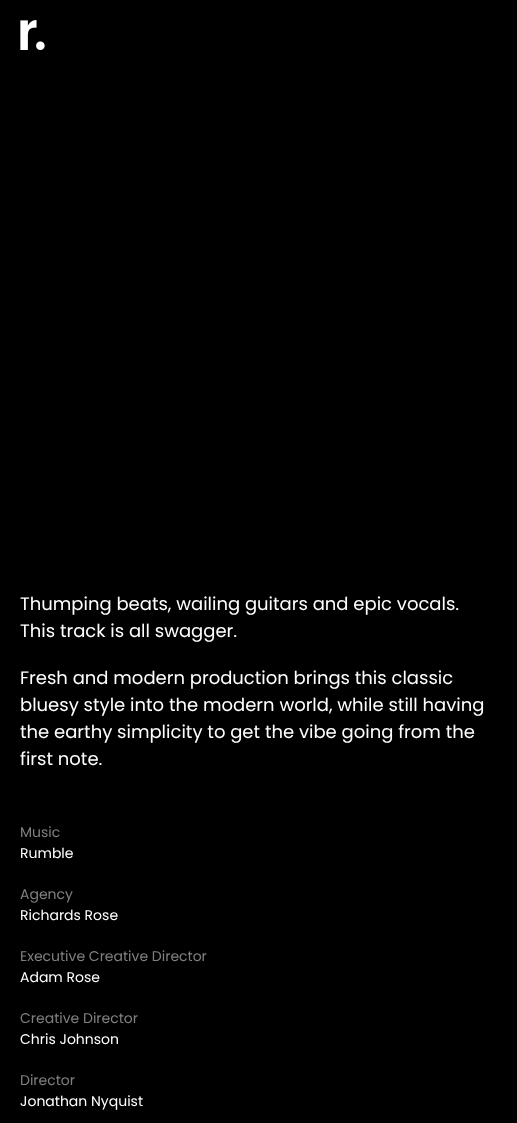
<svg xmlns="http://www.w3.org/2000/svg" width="517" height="1123">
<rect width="100%" height="100%" fill="#000"/>
<image x="20" y="20" width="25" height="30" href="media/1.png"/>
<text x="20" y="610" style="font-family:Poppins;font-size:18px;fill:#fff">Thumping beats, wailing guitars and epic vocals.</text>
<text x="20" y="637" style="font-family:Poppins;font-size:18px;fill:#fff">This track is all swagger.</text>
<text x="20" y="684" style="font-family:Poppins;font-size:18px;fill:#fff">Fresh and modern production brings this classic</text>
<text x="20" y="711" style="font-family:Poppins;font-size:18px;fill:#fff">bluesy style into the modern world, while still having</text>
<text x="20" y="738" style="font-family:Poppins;font-size:18px;fill:#fff">the earthy simplicity to get the vibe going from the</text>
<text x="20" y="765" style="font-family:Poppins;font-size:18px;fill:#fff">first note.</text>
<text x="20" y="837" style="font-family:Poppins;font-size:14px;fill:#808080">Music</text>
<text x="20" y="858" style="font-family:Poppins;font-size:14px;fill:#fff">Rumble</text>
<text x="20" y="899" style="font-family:Poppins;font-size:14px;fill:#808080">Agency</text>
<text x="20" y="920" style="font-family:Poppins;font-size:14px;fill:#fff">Richards Rose</text>
<text x="20" y="961" style="font-family:Poppins;font-size:14px;fill:#808080">Executive Creative Director</text>
<text x="20" y="982" style="font-family:Poppins;font-size:14px;fill:#fff">Adam Rose</text>
<text x="20" y="1023" style="font-family:Poppins;font-size:14px;fill:#808080">Creative Director</text>
<text x="20" y="1044" style="font-family:Poppins;font-size:14px;fill:#fff">Chris Johnson</text>
<text x="20" y="1085" style="font-family:Poppins;font-size:14px;fill:#808080">Director</text>
<text x="20" y="1106" style="font-family:Poppins;font-size:14px;fill:#fff">Jonathan Nyquist</text>
</svg>
